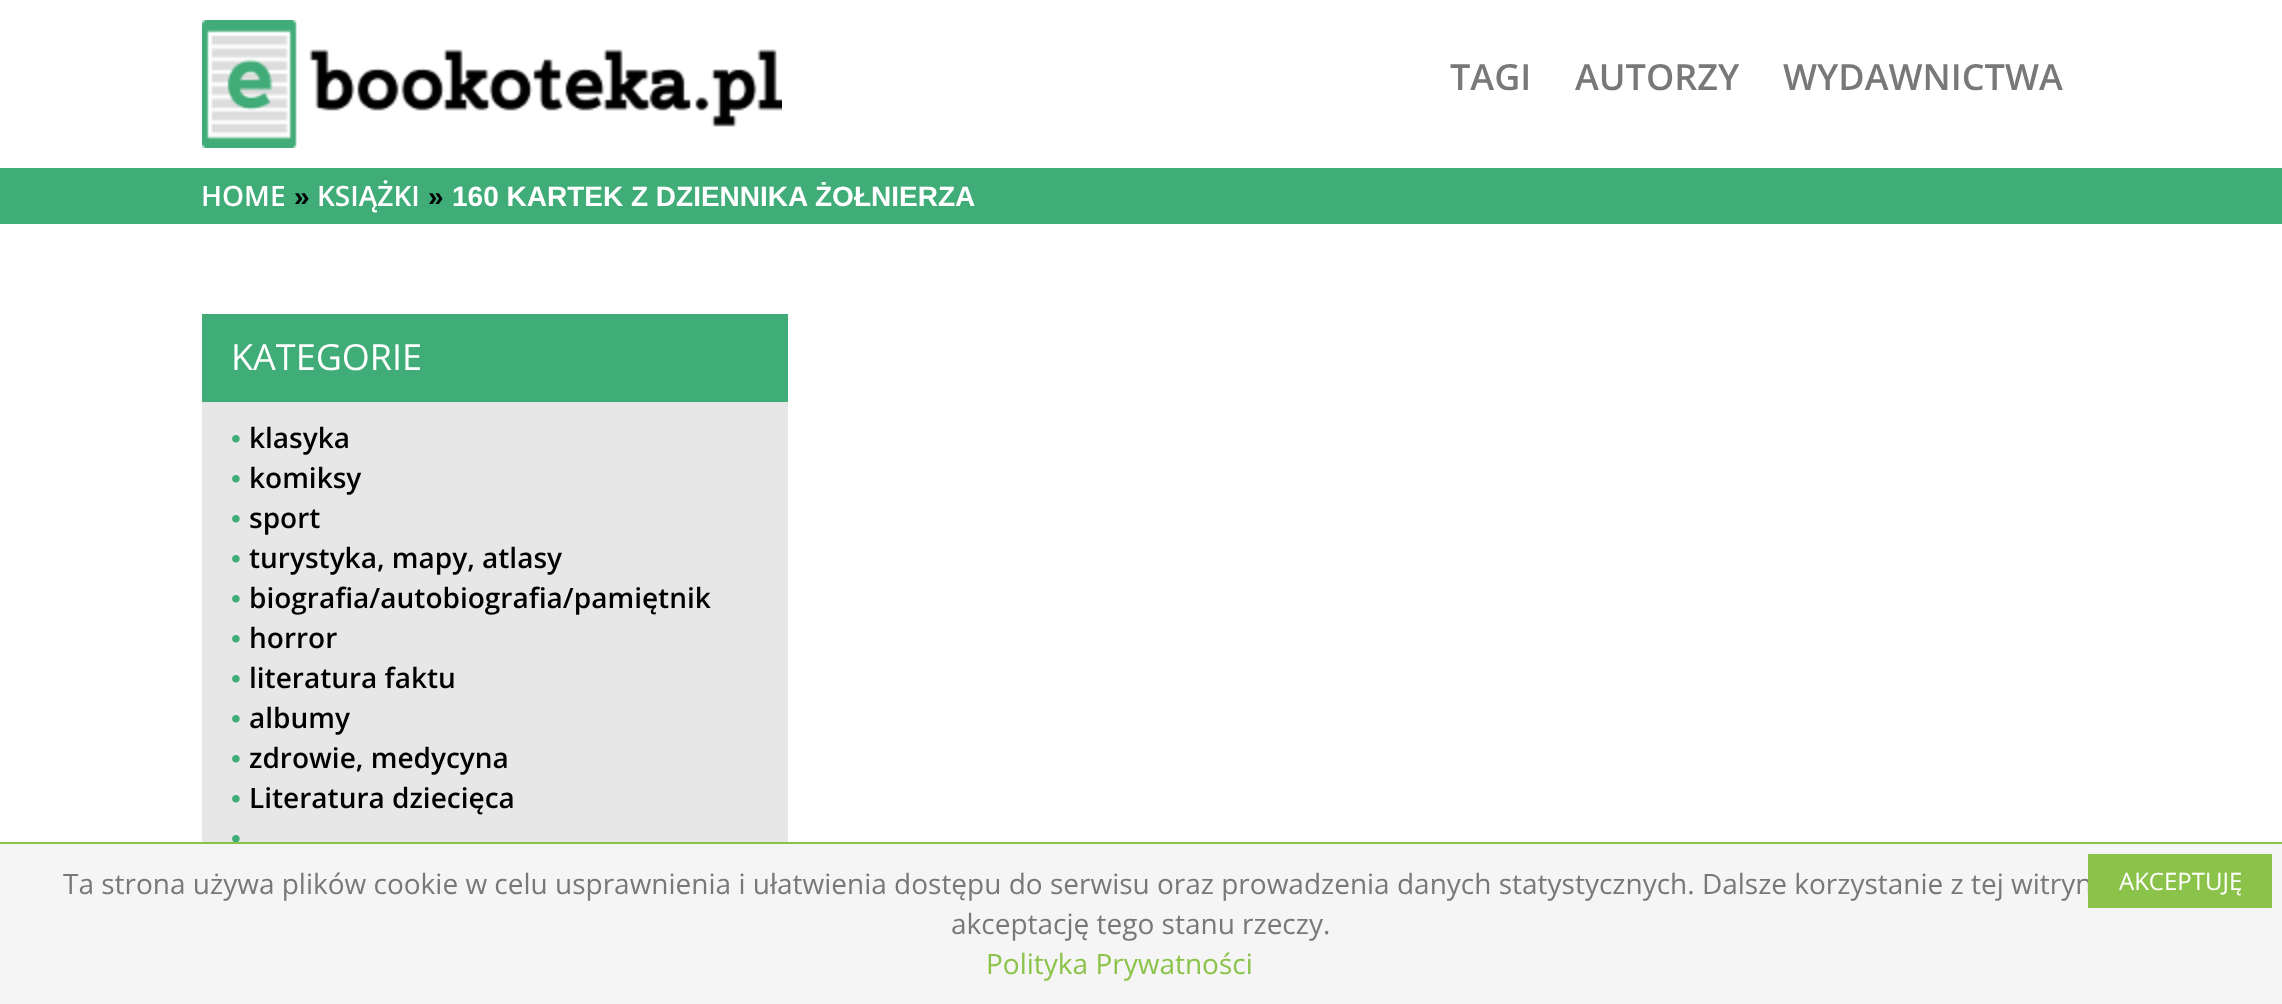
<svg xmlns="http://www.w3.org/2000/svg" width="2282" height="1004">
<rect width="100%" height="100%" fill="#fff"/>
<image x="202" y="20" width="580" height="128" href="media/1.png"/>
<text x="1450" y="90" style="font-family:Open Sans;font-size:36px;font-weight:600;fill:#787878">TAGI</text>
<text x="1575" y="90" style="font-family:Open Sans;font-size:36px;font-weight:600;fill:#787878">AUTORZY</text>
<text x="1783" y="90" style="font-family:Open Sans;font-size:36px;font-weight:600;fill:#787878">WYDAWNICTWA</text>
<rect y="168" width="2282" height="56" fill="#40ac78"/>
<text x="201" y="206" style="font-family:Open Sans;font-size:28px;font-weight:600;fill:#fff">HOME</text>
<text x="294" y="206" style="font-family:Liberation Sans;font-size:28px;font-weight:bold;fill:#000">»</text>
<text x="317" y="206" style="font-family:Open Sans;font-size:28px;font-weight:600;fill:#fff">KSIĄŻKI</text>
<text x="428" y="206" style="font-family:Liberation Sans;font-size:28px;font-weight:bold;fill:#000">»</text>
<text x="452" y="206" style="font-family:Liberation Sans;font-size:28px;font-weight:bold;fill:#fff">160 KARTEK Z DZIENNIKA ŻOŁNIERZA</text>
<rect x="202" y="402" width="586" height="440" fill="#e7e7e7"/>
<rect x="202" y="314" width="586" height="88" fill="#40ac78"/>
<text x="231" y="370" style="font-family:Open Sans;font-size:36px;fill:#fff">KATEGORIE</text>
<text x="231" y="448" style="font-family:Liberation Sans;font-size:28px;fill:#40ac78">•</text>
<text x="249" y="448" style="font-family:Open Sans;font-size:28px;font-weight:600;fill:#000">klasyka</text>
<text x="231" y="488" style="font-family:Liberation Sans;font-size:28px;fill:#40ac78">•</text>
<text x="249" y="488" style="font-family:Open Sans;font-size:28px;font-weight:600;fill:#000">komiksy</text>
<text x="231" y="528" style="font-family:Liberation Sans;font-size:28px;fill:#40ac78">•</text>
<text x="249" y="528" style="font-family:Open Sans;font-size:28px;font-weight:600;fill:#000">sport</text>
<text x="231" y="568" style="font-family:Liberation Sans;font-size:28px;fill:#40ac78">•</text>
<text x="249" y="568" style="font-family:Open Sans;font-size:28px;font-weight:600;fill:#000">turystyka, mapy, atlasy</text>
<text x="231" y="608" style="font-family:Liberation Sans;font-size:28px;fill:#40ac78">•</text>
<text x="249" y="608" style="font-family:Open Sans;font-size:28px;font-weight:600;fill:#000">biografia/autobiografia/pamiętnik</text>
<text x="231" y="648" style="font-family:Liberation Sans;font-size:28px;fill:#40ac78">•</text>
<text x="249" y="648" style="font-family:Open Sans;font-size:28px;font-weight:600;fill:#000">horror</text>
<text x="231" y="688" style="font-family:Liberation Sans;font-size:28px;fill:#40ac78">•</text>
<text x="249" y="688" style="font-family:Open Sans;font-size:28px;font-weight:600;fill:#000">literatura faktu</text>
<text x="231" y="728" style="font-family:Liberation Sans;font-size:28px;fill:#40ac78">•</text>
<text x="249" y="728" style="font-family:Open Sans;font-size:28px;font-weight:600;fill:#000">albumy</text>
<text x="231" y="768" style="font-family:Liberation Sans;font-size:28px;fill:#40ac78">•</text>
<text x="249" y="768" style="font-family:Open Sans;font-size:28px;font-weight:600;fill:#000">zdrowie, medycyna</text>
<text x="231" y="808" style="font-family:Liberation Sans;font-size:28px;fill:#40ac78">•</text>
<text x="249" y="808" style="font-family:Open Sans;font-size:28px;font-weight:600;fill:#000">Literatura dziecięca</text>
<text x="231" y="848" style="font-family:Liberation Sans;font-size:28px;fill:#40ac78">•</text>
<rect y="844" width="2282" height="160" fill="#f5f5f5"/>
<rect y="842" width="2282" height="2" fill="#8bc34a"/>
<text x="63" y="894" style="font-family:Open Sans;font-size:28px;fill:#787878">Ta strona używa plików cookie w celu usprawnienia i ułatwienia dostępu do serwisu oraz prowadzenia danych statystycznych. Dalsze korzystanie z tej witryn</text>
<rect x="2088" y="854" width="184" height="54" fill="#8bc34a"/>
<text x="2119" y="890" style="font-family:Open Sans;font-size:24px;fill:#fff">AKCEPTUJĘ</text>
<text x="951" y="934" style="font-family:Open Sans;font-size:28px;fill:#787878">akceptację tego stanu rzeczy.</text>
<text x="986" y="974" style="font-family:Open Sans;font-size:28px;fill:#8bc34a">Polityka Prywatności</text>
</svg>
